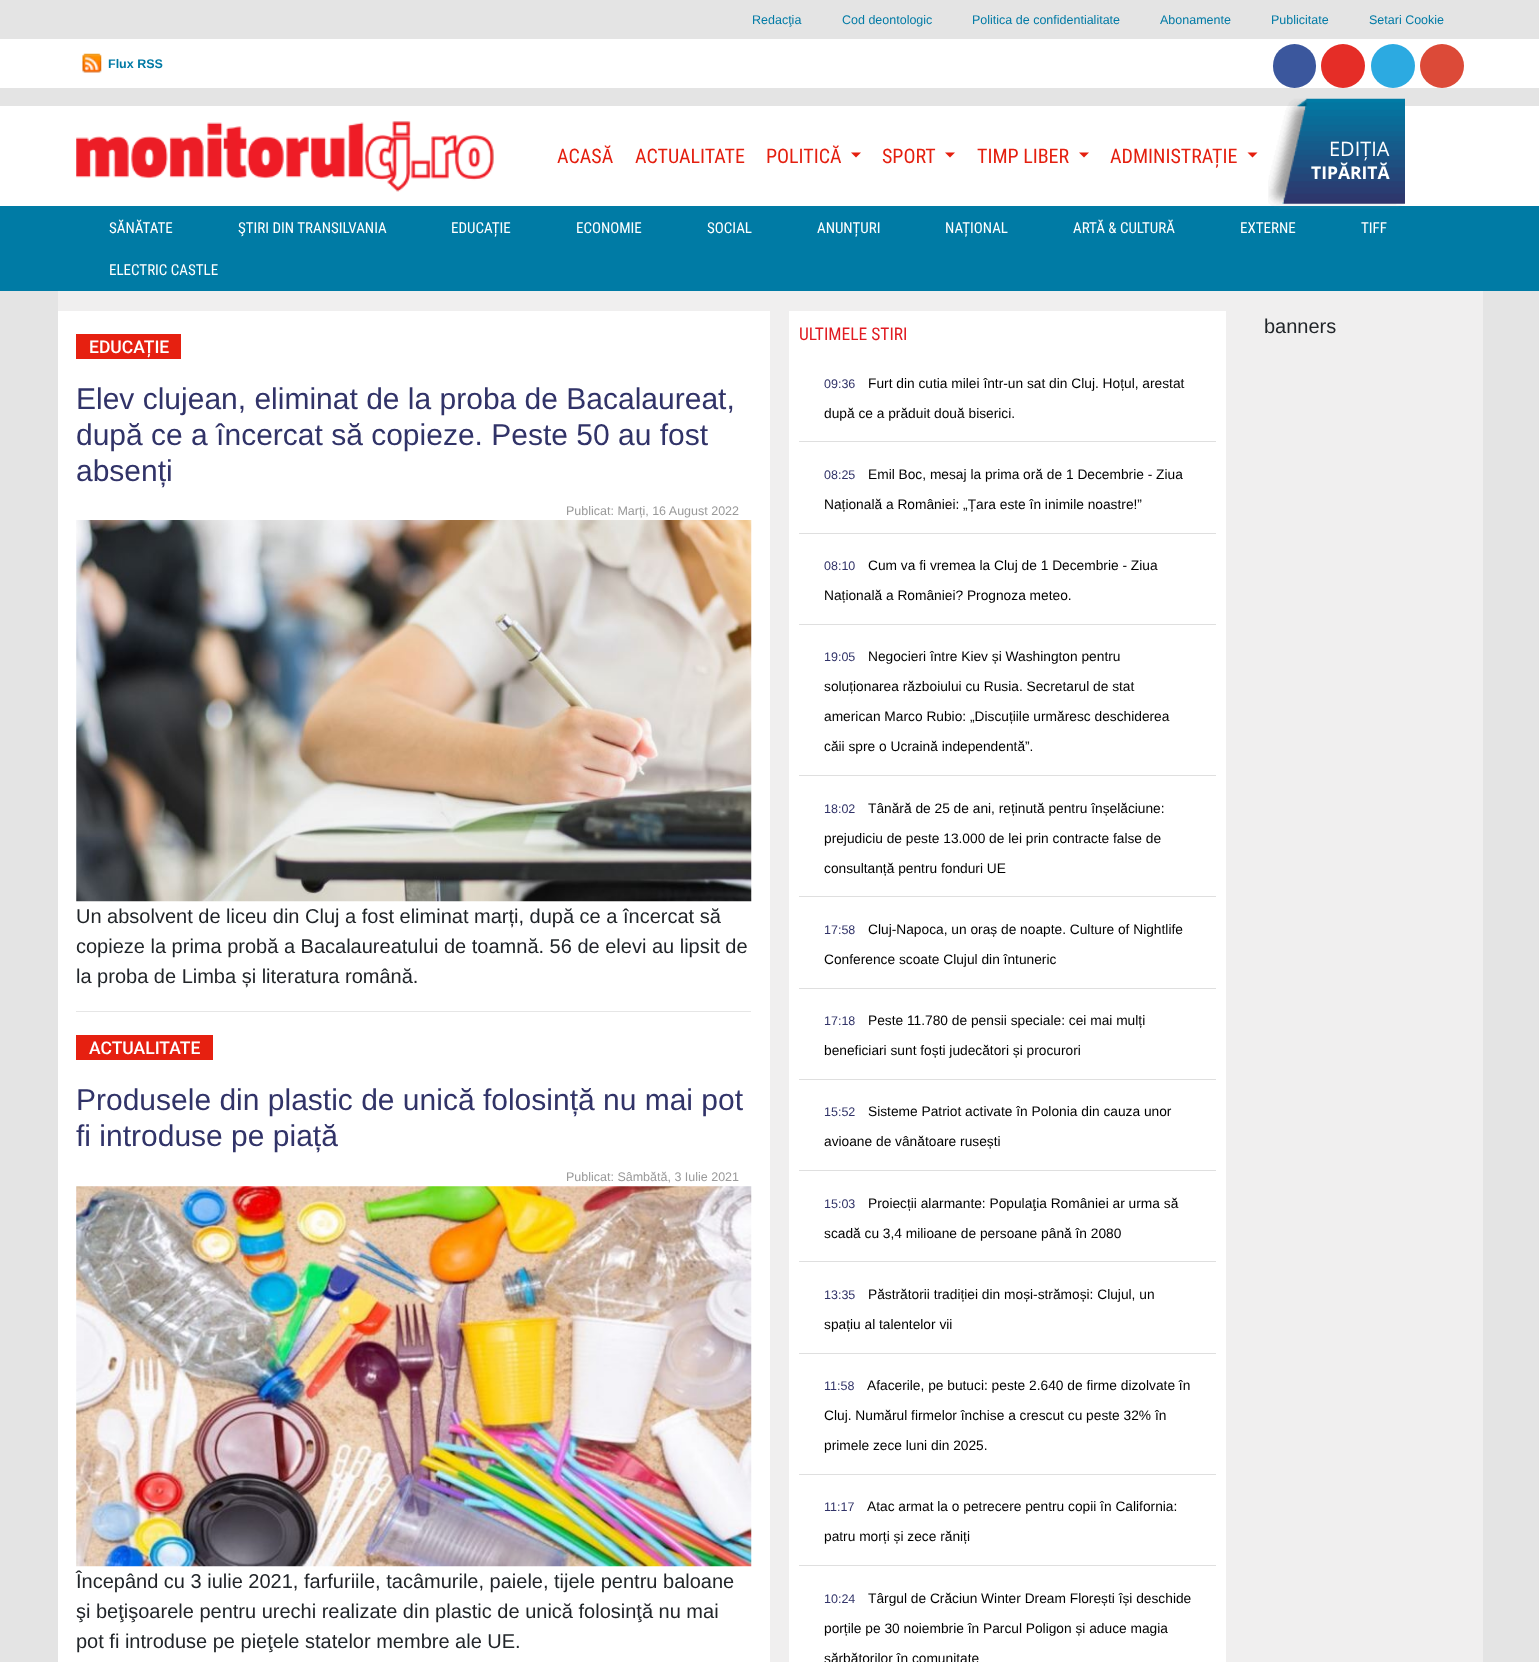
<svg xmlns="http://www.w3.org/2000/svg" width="1539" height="1662">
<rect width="100%" height="100%" fill="#e4e4e4"/>
<text x="752" y="24" style="font-family:Liberation Sans;font-size:12.5px;fill:#007aa5">Redacţia</text>
<text x="842" y="24" style="font-family:Liberation Sans;font-size:12.5px;fill:#007aa5">Cod deontologic</text>
<text x="972" y="24" style="font-family:Liberation Sans;font-size:12.5px;fill:#007aa5">Politica de confidentialitate</text>
<text x="1160" y="24" style="font-family:Liberation Sans;font-size:12.5px;fill:#007aa5">Abonamente</text>
<text x="1271" y="24" style="font-family:Liberation Sans;font-size:12.5px;fill:#007aa5">Publicitate</text>
<text x="1369" y="24" style="font-family:Liberation Sans;font-size:12.5px;fill:#007aa5">Setari Cookie</text>
<rect y="39" width="1539" height="49" fill="#fff"/>
<image x="82" y="53" width="20" height="20" href="media/1.png"/>
<text x="108" y="68" style="font-family:Liberation Sans;font-size:12.5px;font-weight:bold;fill:#007aa5">Flux RSS</text>
<rect x="1273" y="44" width="43" height="44" rx="21.5" fill="#3b579d"/>
<circle cx="1343" cy="66" r="22" fill="#e52d27"/>
<circle cx="1393" cy="66" r="22" fill="#2caae1"/>
<circle cx="1442" cy="66" r="22" fill="#dc4a38"/>
<rect y="106" width="1539" height="100" fill="#fff"/>
<image x="76" y="121" width="418" height="71" href="media/2.png"/>
<text x="557" y="163" style="font-family:Roboto Condensed;font-size:20px;fill:#e41f0f">ACASĂ</text>
<text x="635" y="163" style="font-family:Roboto Condensed;font-size:20px;fill:#e41f0f">ACTUALITATE</text>
<text x="766" y="163" style="font-family:Roboto Condensed;font-size:20px;fill:#e41f0f">POLITICĂ</text>
<path d="M851 152.5h10l-5 5z" fill="#e41f0f"/>
<text x="882" y="163" style="font-family:Roboto Condensed;font-size:20px;fill:#e41f0f">SPORT</text>
<path d="M945 152.5h10l-5 5z" fill="#e41f0f"/>
<text x="977" y="163" style="font-family:Roboto Condensed;font-size:20px;fill:#e41f0f">TIMP LIBER</text>
<path d="M1079 152.5h10l-5 5z" fill="#e41f0f"/>
<text x="1110" y="163" style="font-family:Roboto Condensed;font-size:20px;fill:#e41f0f">ADMINISTRAȚIE</text>
<path d="M1247.5 152.5h10l-5 5z" fill="#e41f0f"/>
<rect y="206" width="1539" height="85" fill="#007ba5"/>
<image x="1268" y="98" width="137" height="111" href="media/3.png"/>
<text x="1329" y="156" style="font-family:Open Sans;font-size:20px;fill:#fff">EDIȚIA</text>
<text x="1311" y="179" style="font-family:Open Sans;font-size:17.5px;font-weight:bold;fill:#fff">TIPĂRITĂ</text>
<text x="109" y="233" style="font-family:Roboto Condensed;font-size:15px;fill:#fff">SĂNĂTATE</text>
<text x="238" y="233" style="font-family:Roboto Condensed;font-size:15px;fill:#fff">ŞTIRI DIN TRANSILVANIA</text>
<text x="451" y="233" style="font-family:Roboto Condensed;font-size:15px;fill:#fff">EDUCAȚIE</text>
<text x="576" y="233" style="font-family:Roboto Condensed;font-size:15px;fill:#fff">ECONOMIE</text>
<text x="707" y="233" style="font-family:Roboto Condensed;font-size:15px;fill:#fff">SOCIAL</text>
<text x="817" y="233" style="font-family:Roboto Condensed;font-size:15px;fill:#fff">ANUNȚURI</text>
<text x="945" y="233" style="font-family:Roboto Condensed;font-size:15px;fill:#fff">NAȚIONAL</text>
<text x="1073" y="233" style="font-family:Roboto Condensed;font-size:15px;fill:#fff">ARTĂ &amp; CULTURĂ</text>
<text x="1240" y="233" style="font-family:Roboto Condensed;font-size:15px;fill:#fff">EXTERNE</text>
<text x="1361" y="233" style="font-family:Roboto Condensed;font-size:15px;fill:#fff">TIFF</text>
<text x="109" y="275" style="font-family:Roboto Condensed;font-size:15px;fill:#fff">ELECTRIC CASTLE</text>
<rect x="58" y="291" width="1425" height="1371" fill="#f0efef"/>
<rect x="58" y="311" width="712" height="1351" fill="#fff"/>
<rect x="76" y="334" width="105" height="25" fill="#e62010"/>
<text x="89" y="353" style="font-family:Roboto;font-size:17.5px;font-weight:500;fill:#fff">EDUCAȚIE</text>
<text x="76" y="409" style="font-family:Liberation Sans;font-size:30px;fill:#313368">Elev clujean, eliminat de la proba de Bacalaureat,</text>
<text x="76" y="445" style="font-family:Liberation Sans;font-size:30px;fill:#313368">după ce a încercat să copieze. Peste 50 au fost</text>
<text x="76" y="481" style="font-family:Liberation Sans;font-size:30px;fill:#313368">absenți</text>
<text x="566" y="515" style="font-family:Liberation Sans;font-size:12.5px;fill:#999">Publicat: Marți, 16 August 2022</text>
<image x="76" y="520" width="676" height="382" href="media/4.png"/>
<text x="76" y="923" style="font-family:Liberation Sans;font-size:20px;fill:#212529">Un absolvent de liceu din Cluj a fost eliminat marți, după ce a încercat să</text>
<text x="76" y="953" style="font-family:Liberation Sans;font-size:20px;fill:#212529">copieze la prima probă a Bacalaureatului de toamnă. 56 de elevi au lipsit de</text>
<text x="76" y="983" style="font-family:Liberation Sans;font-size:20px;fill:#212529">la proba de Limba și literatura română.</text>
<rect x="76" y="1011" width="675" height="1" fill="#e6e6e6"/>
<rect x="76" y="1035" width="137" height="25" fill="#e62010"/>
<text x="89" y="1054" style="font-family:Roboto;font-size:17.5px;font-weight:500;fill:#fff">ACTUALITATE</text>
<text x="76" y="1110" style="font-family:Liberation Sans;font-size:30px;fill:#313368">Produsele din plastic de unică folosință nu mai pot</text>
<text x="76" y="1146" style="font-family:Liberation Sans;font-size:30px;fill:#313368">fi introduse pe piață</text>
<text x="566" y="1181" style="font-family:Liberation Sans;font-size:12.5px;fill:#999">Publicat: Sâmbătă, 3 Iulie 2021</text>
<image x="76" y="1186" width="676" height="381" href="media/5.png"/>
<text x="76" y="1588" style="font-family:Liberation Sans;font-size:20px;fill:#212529">Începând cu 3 iulie 2021, farfuriile, tacâmurile, paiele, tijele pentru baloane</text>
<text x="76" y="1618" style="font-family:Liberation Sans;font-size:20px;fill:#212529">şi beţişoarele pentru urechi realizate din plastic de unică folosinţă nu mai</text>
<text x="76" y="1648" style="font-family:Liberation Sans;font-size:20px;fill:#212529">pot fi introduse pe pieţele statelor membre ale UE.</text>
<rect x="789" y="311" width="437" height="1351" fill="#fff"/>
<text x="799" y="340" style="font-family:Roboto Condensed;font-size:17.5px;fill:#e11b22">ULTIMELE STIRI</text>
<rect x="799" y="441" width="417" height="1" fill="#dfdfdf"/>
<text x="824" y="388" style="font-family:Liberation Sans;font-size:12.5px;fill:#313368">09:36</text>
<text x="868" y="388" style="font-family:Liberation Sans;font-size:13.75px;fill:#000">Furt din cutia milei într-un sat din Cluj. Hoțul, arestat</text>
<text x="824" y="418" style="font-family:Liberation Sans;font-size:13.75px;fill:#000">după ce a prăduit două biserici.</text>
<rect x="799" y="533" width="417" height="1" fill="#dfdfdf"/>
<text x="824" y="479" style="font-family:Liberation Sans;font-size:12.5px;fill:#313368">08:25</text>
<text x="868" y="479" style="font-family:Liberation Sans;font-size:13.75px;fill:#000">Emil Boc, mesaj la prima oră de 1 Decembrie - Ziua</text>
<text x="824" y="509" style="font-family:Liberation Sans;font-size:13.75px;fill:#000">Națională a României: „Țara este în inimile noastre!”</text>
<rect x="799" y="624" width="417" height="1" fill="#dfdfdf"/>
<text x="824" y="570" style="font-family:Liberation Sans;font-size:12.5px;fill:#313368">08:10</text>
<text x="868" y="570" style="font-family:Liberation Sans;font-size:13.75px;fill:#000">Cum va fi vremea la Cluj de 1 Decembrie - Ziua</text>
<text x="824" y="600" style="font-family:Liberation Sans;font-size:13.75px;fill:#000">Națională a României? Prognoza meteo.</text>
<rect x="799" y="775" width="417" height="1" fill="#dfdfdf"/>
<text x="824" y="661" style="font-family:Liberation Sans;font-size:12.5px;fill:#313368">19:05</text>
<text x="868" y="661" style="font-family:Liberation Sans;font-size:13.75px;fill:#000">Negocieri între Kiev și Washington pentru</text>
<text x="824" y="691" style="font-family:Liberation Sans;font-size:13.75px;fill:#000">soluționarea războiului cu Rusia. Secretarul de stat</text>
<text x="824" y="721" style="font-family:Liberation Sans;font-size:13.75px;fill:#000">american Marco Rubio: „Discuțiile urmăresc deschiderea</text>
<text x="824" y="751" style="font-family:Liberation Sans;font-size:13.75px;fill:#000">căii spre o Ucraină independentă”.</text>
<rect x="799" y="896" width="417" height="1" fill="#dfdfdf"/>
<text x="824" y="813" style="font-family:Liberation Sans;font-size:12.5px;fill:#313368">18:02</text>
<text x="868" y="813" style="font-family:Liberation Sans;font-size:13.75px;fill:#000">Tânără de 25 de ani, reținută pentru înșelăciune:</text>
<text x="824" y="843" style="font-family:Liberation Sans;font-size:13.75px;fill:#000">prejudiciu de peste 13.000 de lei prin contracte false de</text>
<text x="824" y="873" style="font-family:Liberation Sans;font-size:13.75px;fill:#000">consultanță pentru fonduri UE</text>
<rect x="799" y="988" width="417" height="1" fill="#dfdfdf"/>
<text x="824" y="934" style="font-family:Liberation Sans;font-size:12.5px;fill:#313368">17:58</text>
<text x="868" y="934" style="font-family:Liberation Sans;font-size:13.75px;fill:#000">Cluj-Napoca, un oraș de noapte. Culture of Nightlife</text>
<text x="824" y="964" style="font-family:Liberation Sans;font-size:13.75px;fill:#000">Conference scoate Clujul din întuneric</text>
<rect x="799" y="1079" width="417" height="1" fill="#dfdfdf"/>
<text x="824" y="1025" style="font-family:Liberation Sans;font-size:12.5px;fill:#313368">17:18</text>
<text x="868" y="1025" style="font-family:Liberation Sans;font-size:13.75px;fill:#000">Peste 11.780 de pensii speciale: cei mai mulți</text>
<text x="824" y="1055" style="font-family:Liberation Sans;font-size:13.75px;fill:#000">beneficiari sunt foști judecători și procurori</text>
<rect x="799" y="1170" width="417" height="1" fill="#dfdfdf"/>
<text x="824" y="1116" style="font-family:Liberation Sans;font-size:12.5px;fill:#313368">15:52</text>
<text x="868" y="1116" style="font-family:Liberation Sans;font-size:13.75px;fill:#000">Sisteme Patriot activate în Polonia din cauza unor</text>
<text x="824" y="1146" style="font-family:Liberation Sans;font-size:13.75px;fill:#000">avioane de vânătoare rusești</text>
<rect x="799" y="1261" width="417" height="1" fill="#dfdfdf"/>
<text x="824" y="1208" style="font-family:Liberation Sans;font-size:12.5px;fill:#313368">15:03</text>
<text x="868" y="1208" style="font-family:Liberation Sans;font-size:13.75px;fill:#000">Proiecții alarmante: Populaţia României ar urma să</text>
<text x="824" y="1238" style="font-family:Liberation Sans;font-size:13.75px;fill:#000">scadă cu 3,4 milioane de persoane până în 2080</text>
<rect x="799" y="1353" width="417" height="1" fill="#dfdfdf"/>
<text x="824" y="1299" style="font-family:Liberation Sans;font-size:12.5px;fill:#313368">13:35</text>
<text x="868" y="1299" style="font-family:Liberation Sans;font-size:13.75px;fill:#000">Păstrătorii tradiției din moși-strămoși: Clujul, un</text>
<text x="824" y="1329" style="font-family:Liberation Sans;font-size:13.75px;fill:#000">spațiu al talentelor vii</text>
<rect x="799" y="1474" width="417" height="1" fill="#dfdfdf"/>
<text x="824" y="1390" style="font-family:Liberation Sans;font-size:12.5px;fill:#313368">11:58</text>
<text x="867" y="1390" style="font-family:Liberation Sans;font-size:13.75px;fill:#000">Afacerile, pe butuci: peste 2.640 de firme dizolvate în</text>
<text x="824" y="1420" style="font-family:Liberation Sans;font-size:13.75px;fill:#000">Cluj. Numărul firmelor închise a crescut cu peste 32% în</text>
<text x="824" y="1450" style="font-family:Liberation Sans;font-size:13.75px;fill:#000">primele zece luni din 2025.</text>
<rect x="799" y="1565" width="417" height="1" fill="#dfdfdf"/>
<text x="824" y="1511" style="font-family:Liberation Sans;font-size:12.5px;fill:#313368">11:17</text>
<text x="867" y="1511" style="font-family:Liberation Sans;font-size:13.75px;fill:#000">Atac armat la o petrecere pentru copii în California:</text>
<text x="824" y="1541" style="font-family:Liberation Sans;font-size:13.75px;fill:#000">patru morți și zece răniți</text>
<text x="824" y="1603" style="font-family:Liberation Sans;font-size:12.5px;fill:#313368">10:24</text>
<text x="868" y="1603" style="font-family:Liberation Sans;font-size:13.75px;fill:#000">Târgul de Crăciun Winter Dream Florești își deschide</text>
<text x="824" y="1633" style="font-family:Liberation Sans;font-size:13.75px;fill:#000">porțile pe 30 noiembrie în Parcul Poligon și aduce magia</text>
<text x="824" y="1663" style="font-family:Liberation Sans;font-size:13.75px;fill:#000">sărbătorilor în comunitate</text>
<text x="1264" y="333" style="font-family:Liberation Sans;font-size:20px;fill:#212529">banners</text>
</svg>
